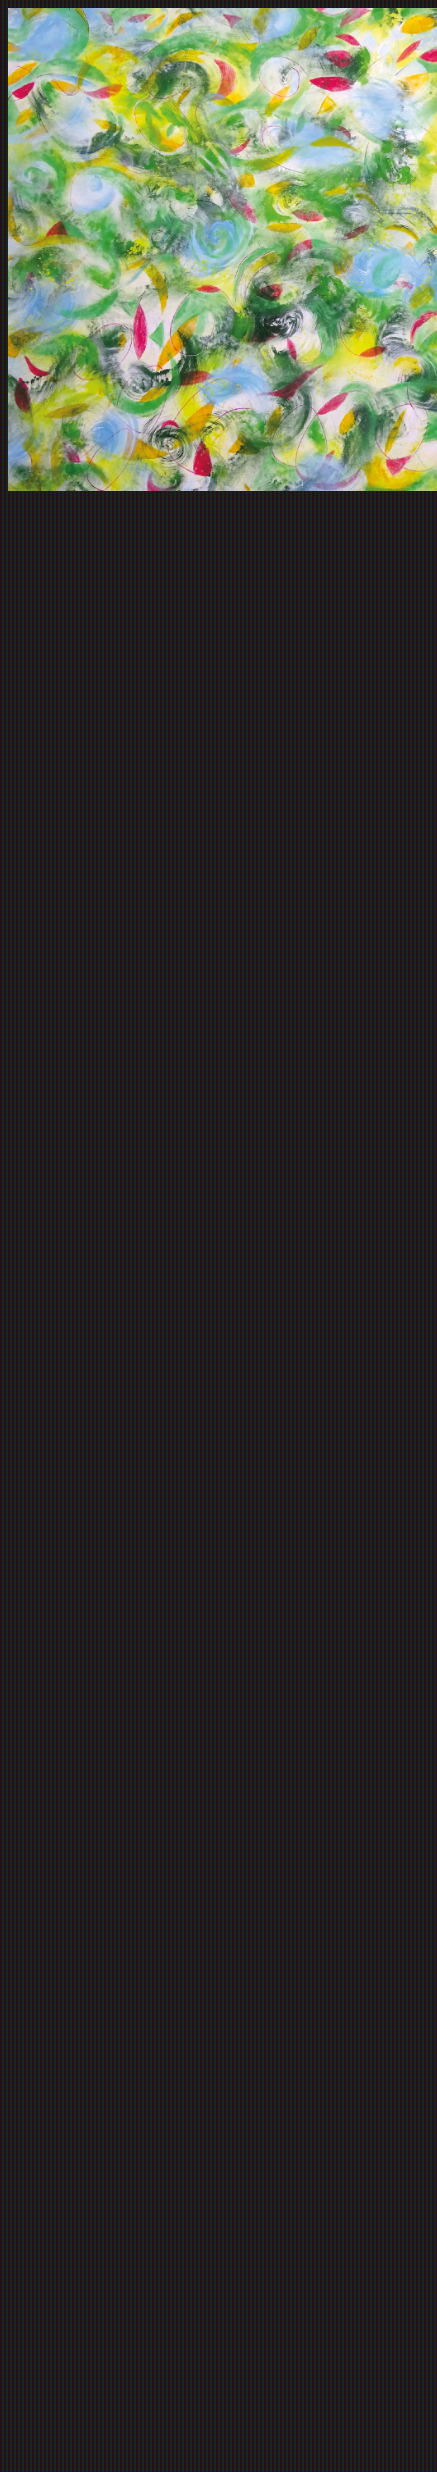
<svg xmlns="http://www.w3.org/2000/svg" width="437" height="2472">
<rect width="100%" height="100%" fill="#fff"/>
<image x="0" y="0" width="437" height="2472" href="media/1.png"/>
<image x="8" y="8" width="429" height="483" href="media/2.png"/>
</svg>
